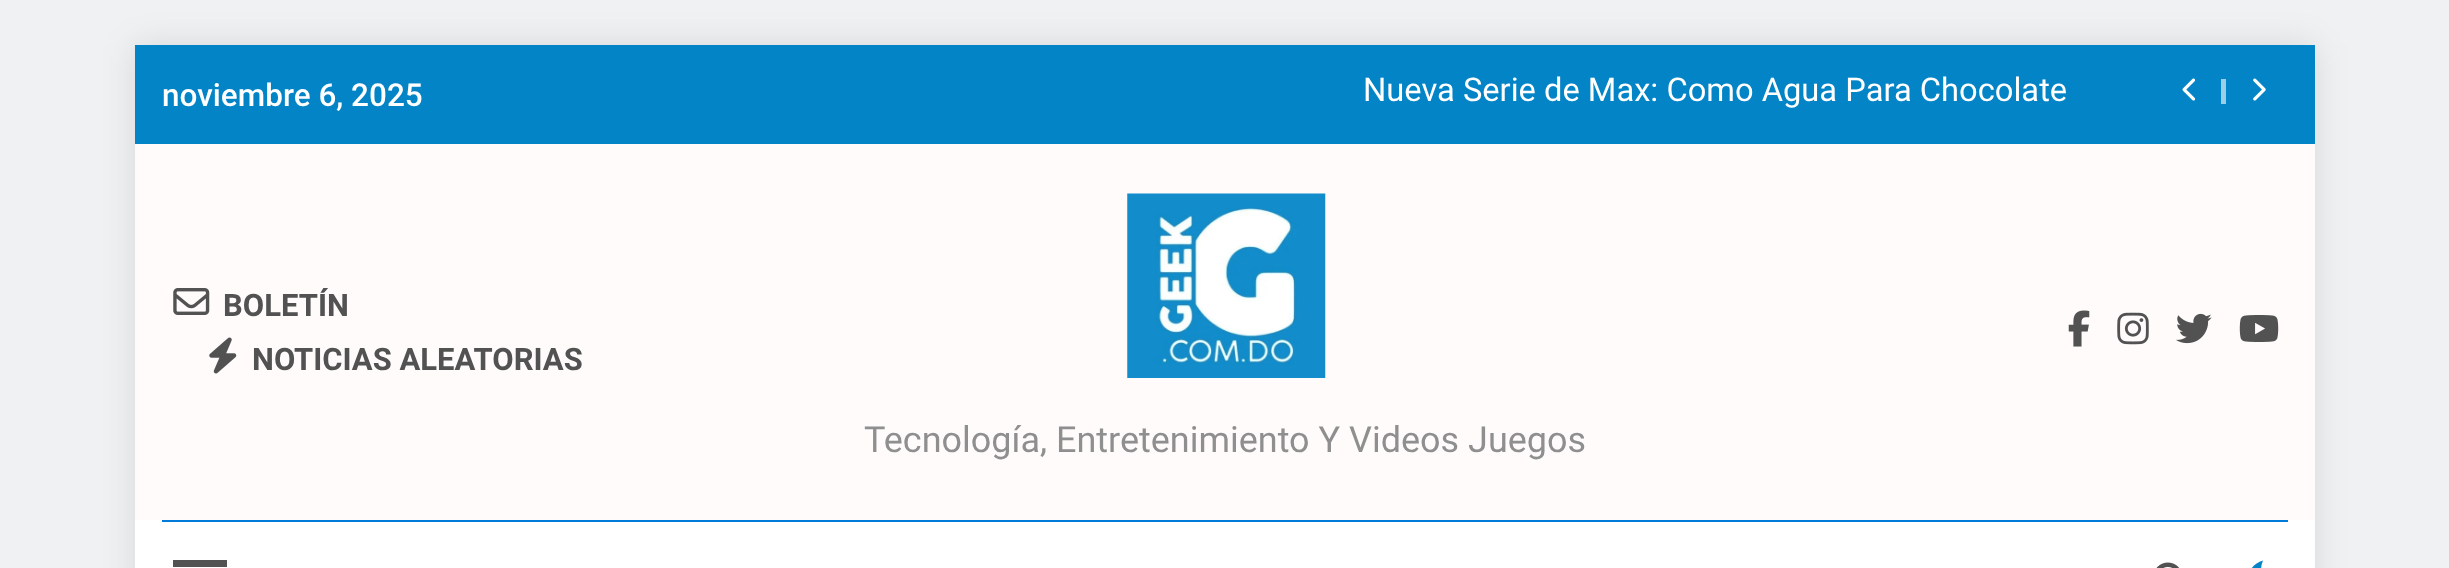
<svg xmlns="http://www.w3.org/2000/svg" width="2449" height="568">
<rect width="100%" height="100%" fill="#f0f1f2"/>
<rect x="135" y="45" width="2180" height="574" fill="#0000001a" filter="blur(17px)"/>
<rect x="135" y="45" width="2180" height="99" fill="#0284c7"/>
<text x="162" y="106" style="font-family:Roboto;font-size:31.5px;font-weight:500;fill:#fff">noviembre 6, 2025</text>
<text x="1363" y="101" style="font-family:Roboto;font-size:32.7px;fill:#fff">Nueva Serie de Max: Como Agua Para Chocolate</text>
<image x="2182" y="78" width="14" height="23" href="media/1.png"/>
<rect x="2221" y="79" width="5" height="25" fill="#9acee9"/>
<image x="2253" y="78" width="13" height="23" href="media/2.png"/>
<rect x="135" y="144" width="2180" height="376" fill="#fffbfb"/>
<image x="173" y="288" width="37" height="27" href="media/3.png"/>
<text x="223" y="316" style="font-family:Roboto;font-size:31px;font-weight:bold;fill:#525252">BOLETÍN</text>
<image x="209" y="337" width="28" height="37" href="media/4.png"/>
<text x="252" y="370" style="font-family:Roboto;font-size:31px;font-weight:bold;fill:#525252">NOTICIAS ALEATORIAS</text>
<image x="2068" y="310" width="22" height="37" href="media/5.png"/>
<image x="2117" y="312" width="32" height="33" href="media/6.png"/>
<image x="2175" y="313" width="37" height="31" href="media/7.png"/>
<image x="2239" y="315" width="40" height="27" href="media/8.png"/>
<image x="1127" y="193" width="199" height="185" href="media/9.png"/>
<text x="864" y="452" style="font-family:Roboto;font-size:36px;fill:#8f8f8f">Tecnología, Entretenimiento Y Videos Juegos</text>
<rect x="135" y="520" width="2180" height="48" fill="#fff"/>
<rect x="162" y="520" width="2126" height="2" fill="#007bd9"/>
<rect x="173" y="560" width="54" height="7" fill="#525252"/>
<image x="2156" y="562" width="24" height="6" href="media/10.png"/>
<path d="M2286 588.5c-17 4-30-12-23-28c-5.5 1.5-10 5-12.5 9.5c-2.5 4-3 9-2 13.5c3.5 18 29 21 37.5 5z" fill="#0284c7"/>
</svg>
